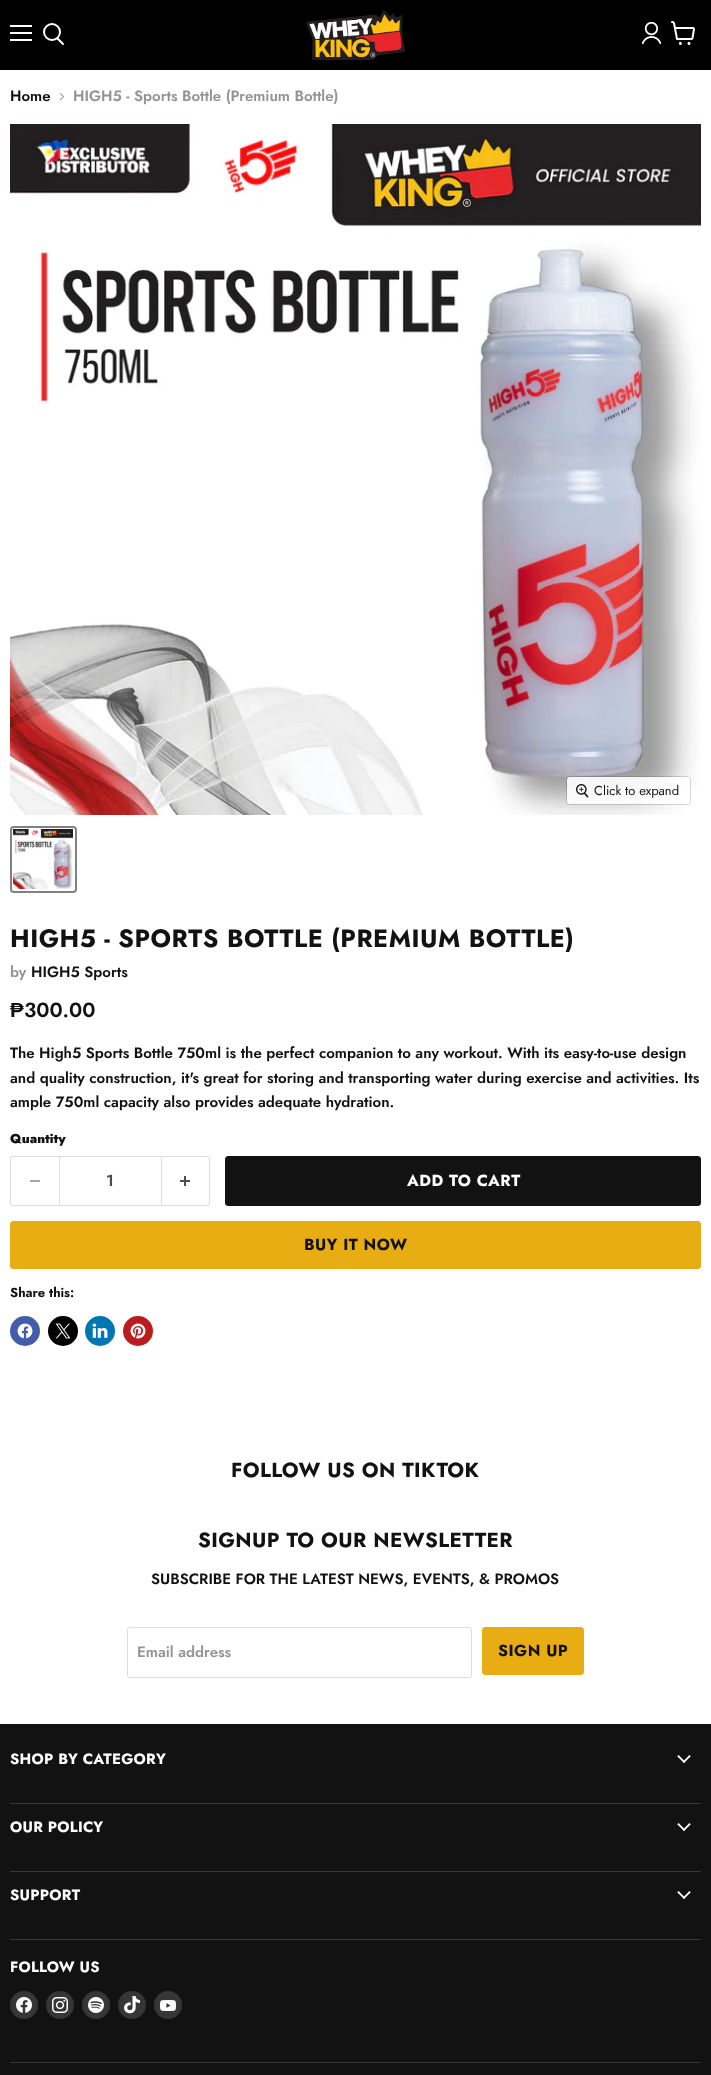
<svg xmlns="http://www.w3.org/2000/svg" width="711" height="2075">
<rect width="100%" height="100%" fill="#fff"/>
<rect width="711" height="70" fill="#000"/>
<rect x="10" y="25" width="22" height="2" fill="#fff"/>
<rect x="10" y="32" width="22" height="2" fill="#fff"/>
<rect x="10" y="39" width="22" height="2" fill="#fff"/>
<path d="M63 44l-5.5-5.5" fill="none" stroke="#fff" stroke-width="2" stroke-linecap="round"/>
<circle cx="52" cy="32" r="8" fill="none" stroke="#fff" stroke-width="2"/>
<image x="306" y="10" width="99" height="50" href="media/1.png"/>
<image x="641" y="21" width="20" height="24" href="media/2.png"/>
<image x="671" y="21" width="24" height="24" href="media/3.png"/>
<text x="10" y="101" style="font-family:Jost;font-size:15px;font-weight:600;fill:#121212">Home</text>
<image x="59" y="93" width="5" height="8" href="media/4.png"/>
<text x="73" y="101" style="font-family:Jost;font-size:15px;font-weight:600;fill:#949494">HIGH5 - Sports Bottle (Premium Bottle)</text>
<image x="10" y="124" width="691" height="691" href="media/5.png"/>
<rect x="566.5" y="776.5" width="124" height="28" rx="3.5" fill="none" stroke="#00000026"/>
<rect x="567" y="777" width="123" height="27" rx="3" fill="#ffffffe6"/>
<image x="576" y="784" width="13" height="14" href="media/6.png"/>
<text x="594" y="795" style="font-family:Jost;font-size:13px;fill:#121212">Click to expand</text>
<rect x="11" y="827" width="65" height="65" rx="3" fill="none" stroke="#818181" stroke-width="2"/>
<image x="13" y="829" width="60" height="60" href="media/7.png"/>
<text x="10" y="947" style="font-family:Jost;font-size:25px;font-weight:bold;letter-spacing:0.5px;fill:#121212">HIGH5 - SPORTS BOTTLE (PREMIUM BOTTLE)</text>
<text x="10" y="977" style="font-family:Jost;font-size:15px;font-weight:600;fill:#949494">by</text>
<text x="31" y="977" style="font-family:Jost;font-size:15px;font-weight:600;fill:#121212">HIGH5 Sports</text>
<text x="10" y="1017" style="font-family:Liberation Sans;font-size:20.5px;font-weight:bold;fill:#121212">₱</text>
<text x="24" y="1017" style="font-family:Jost;font-size:20.5px;font-weight:600;fill:#121212">300.00</text>
<text x="10" y="1058" style="font-family:Jost;font-size:15px;font-weight:600;fill:#121212">The High5 Sports Bottle 750ml is the perfect companion to any workout. With its easy-to-use design</text>
<text x="10" y="1083" style="font-family:Jost;font-size:15px;font-weight:600;fill:#121212">and quality construction, it's great for storing and transporting water during exercise and activities. Its</text>
<text x="10" y="1107" style="font-family:Jost;font-size:15px;font-weight:600;fill:#121212">ample 750ml capacity also provides adequate hydration.</text>
<text x="10" y="1143" style="font-family:Jost;font-size:13px;font-weight:900;fill:#121212">Quantity</text>
<path d="M13 1156h46v50h-46c-2 0-3-1-3-3v-44c0-2 1-3 3-3zm0 1h46v48h-46c-1 0-2-1-2-2v-44c0-1 1-2 2-2z" fill="#ddd" fill-rule="evenodd"/>
<rect x="30" y="1180" width="10" height="2" fill="#a6a6a6"/>
<rect x="59.5" y="1156.5" width="102" height="49" fill="none" stroke="#ddd"/>
<text x="106" y="1186" style="font-family:Jost;font-size:16px;font-weight:600;fill:#4d4d4d">1</text>
<path d="M162 1156h45c2 0 3 1 3 3v44c0 2-1 3-3 3h-45zm0 1h45c1 0 2 1 2 2v44c0 1-1 2-2 2h-45z" fill="#ddd" fill-rule="evenodd"/>
<image x="180" y="1176" width="10" height="10" href="media/8.png"/>
<rect x="225.5" y="1156.5" width="475" height="49" rx="2.5" fill="#121212" stroke="#121212"/>
<text x="407" y="1186" style="font-family:Jost;font-size:16px;font-weight:bold;letter-spacing:0.5px;fill:#fff">ADD TO CART</text>
<rect x="10.5" y="1221.5" width="690" height="47" rx="2.5" fill="#e9ad14" stroke="#e9ad14"/>
<text x="304" y="1250" style="font-family:Jost;font-size:16px;font-weight:bold;letter-spacing:0.5px;fill:#121212">BUY IT NOW</text>
<text x="10" y="1297" style="font-family:Jost;font-size:13px;font-weight:bold;fill:#121212">Share this:</text>
<circle cx="25" cy="1331" r="15" fill="#425dab"/>
<image x="17" y="1323" width="16" height="16" href="media/9.png"/>
<circle cx="63" cy="1331" r="15" fill="#000"/>
<image x="55" y="1323" width="16" height="16" href="media/10.png"/>
<circle cx="100" cy="1331" r="15" fill="#0077b5"/>
<image x="92" y="1323" width="16" height="15" href="media/11.png"/>
<circle cx="138" cy="1331" r="15" fill="#bd1c1c"/>
<image x="130" y="1323" width="16" height="16" href="media/12.png"/>
<text x="231" y="1477" style="font-family:Jost;font-size:20.5px;font-weight:bold;letter-spacing:0.4px;fill:#121212">FOLLOW US ON TIKTOK</text>
<text x="198" y="1547" style="font-family:Jost;font-size:20.5px;font-weight:bold;letter-spacing:0.4px;fill:#121212">SIGNUP TO OUR NEWSLETTER</text>
<text x="151" y="1584" style="font-family:Jost;font-size:15px;font-weight:600;fill:#121212">SUBSCRIBE FOR THE LATEST NEWS, EVENTS, &amp; PROMOS</text>
<rect x="127.5" y="1627.5" width="344" height="50" rx="2.5" fill="none" stroke="#ddd"/>
<text x="137" y="1657" style="font-family:Jost;font-size:15px;font-weight:600;fill:#949494">Email address</text>
<rect x="482.5" y="1627.5" width="101" height="47" rx="2.5" fill="#e9ad14" stroke="#e9ad14"/>
<text x="498" y="1656" style="font-family:Jost;font-size:16px;font-weight:bold;letter-spacing:0.5px;fill:#121212">SIGN UP</text>
<rect y="1724" width="711" height="351" fill="#121212"/>
<rect x="10" y="1803" width="691" height="1" fill="#363636"/>
<text x="10" y="1764" style="font-family:Jost;font-size:14.9px;font-weight:bold;letter-spacing:0.25px;fill:#fff">SHOP BY CATEGORY</text>
<image x="677" y="1755" width="14" height="8" href="media/13.png"/>
<rect x="10" y="1871" width="691" height="1" fill="#363636"/>
<text x="10" y="1832" style="font-family:Jost;font-size:14.9px;font-weight:bold;letter-spacing:0.25px;fill:#fff">OUR POLICY</text>
<image x="677" y="1823" width="14" height="8" href="media/13.png"/>
<rect x="10" y="1939" width="691" height="1" fill="#363636"/>
<text x="10" y="1900" style="font-family:Jost;font-size:14.9px;font-weight:bold;letter-spacing:0.25px;fill:#fff">SUPPORT</text>
<image x="677" y="1891" width="14" height="8" href="media/13.png"/>
<rect x="10" y="2062" width="691" height="1" fill="#363636"/>
<text x="10" y="1972" style="font-family:Jost;font-size:14.9px;font-weight:bold;letter-spacing:0.25px;fill:#fff">FOLLOW US</text>
<circle cx="24" cy="2005" r="14" fill="#363636"/>
<image x="16" y="1997" width="16" height="16" href="media/14.png"/>
<circle cx="60" cy="2005" r="14" fill="#363636"/>
<image x="52" y="1997" width="16" height="16" href="media/15.png"/>
<circle cx="96" cy="2005" r="14" fill="#363636"/>
<image x="88" y="1997" width="16" height="16" href="media/16.png"/>
<circle cx="132" cy="2005" r="14" fill="#363636"/>
<image x="124" y="1996" width="16" height="18" href="media/17.png"/>
<circle cx="168" cy="2005" r="14" fill="#363636"/>
<image x="160" y="2000" width="16" height="11" href="media/18.png"/>
</svg>
